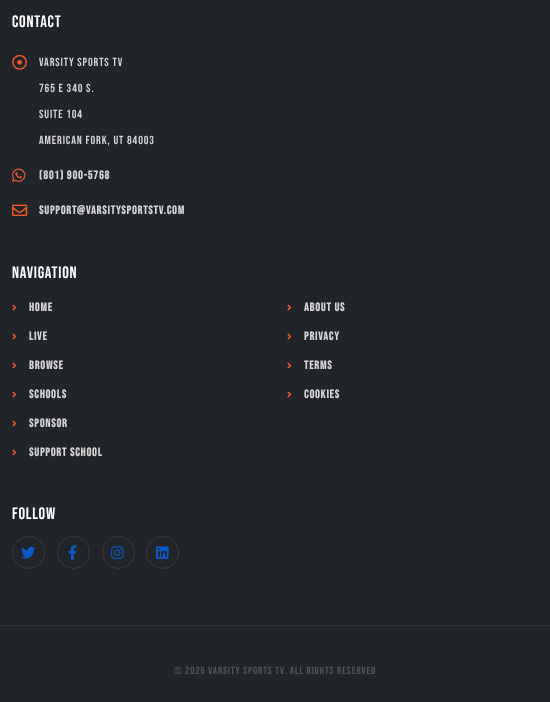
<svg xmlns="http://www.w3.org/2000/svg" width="550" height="702">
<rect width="100%" height="100%" fill="#212529"/>
<text x="12" y="27" style="font-family:Bebas Neue;font-size:16.5px;letter-spacing:0.75px;fill:#fff">CONTACT</text>
<image x="12" y="54" width="15" height="16" href="media/1.png"/>
<text x="39" y="66" style="font-family:Bebas Neue;font-size:11.75px;letter-spacing:0.9px;fill:#d3d3d4">Varsity Sports TV</text>
<text x="39" y="92" style="font-family:Bebas Neue;font-size:11.75px;letter-spacing:0.9px;fill:#d3d3d4">765 E 340 S.</text>
<text x="39" y="118" style="font-family:Bebas Neue;font-size:11.75px;letter-spacing:0.9px;fill:#d3d3d4">Suite 104</text>
<text x="39" y="144" style="font-family:Bebas Neue;font-size:11.75px;letter-spacing:0.9px;fill:#d3d3d4">American Fork, UT 84003</text>
<image x="12" y="168" width="14" height="14" href="media/2.png"/>
<text x="39" y="179" style="font-family:Bebas Neue;font-size:11.75px;font-weight:bold;letter-spacing:0.9px;fill:#d3d3d4">(801) 900-5768</text>
<image x="12" y="204" width="16" height="12" href="media/3.png"/>
<text x="39" y="214" style="font-family:Bebas Neue;font-size:11.75px;font-weight:bold;letter-spacing:0.9px;fill:#d3d3d4">support@varsitysportstv.com</text>
<text x="12" y="278" style="font-family:Bebas Neue;font-size:16.5px;letter-spacing:0.75px;fill:#fff">NAVIGATION</text>
<image x="12" y="304" width="5" height="7" href="media/4.png"/>
<text x="29" y="311" style="font-family:Bebas Neue;font-size:11.75px;font-weight:bold;letter-spacing:0.9px;fill:#d3d3d4">Home</text>
<image x="12" y="333" width="5" height="7" href="media/4.png"/>
<text x="29" y="340" style="font-family:Bebas Neue;font-size:11.75px;font-weight:bold;letter-spacing:0.9px;fill:#d3d3d4">Live</text>
<image x="12" y="362" width="5" height="7" href="media/4.png"/>
<text x="29" y="369" style="font-family:Bebas Neue;font-size:11.75px;font-weight:bold;letter-spacing:0.9px;fill:#d3d3d4">Browse</text>
<image x="12" y="391" width="5" height="7" href="media/4.png"/>
<text x="29" y="398" style="font-family:Bebas Neue;font-size:11.75px;font-weight:bold;letter-spacing:0.9px;fill:#d3d3d4">Schools</text>
<image x="12" y="420" width="5" height="7" href="media/4.png"/>
<text x="29" y="427" style="font-family:Bebas Neue;font-size:11.75px;font-weight:bold;letter-spacing:0.9px;fill:#d3d3d4">Sponsor</text>
<image x="12" y="449" width="5" height="7" href="media/4.png"/>
<text x="29" y="456" style="font-family:Bebas Neue;font-size:11.75px;font-weight:bold;letter-spacing:0.9px;fill:#d3d3d4">Support School</text>
<image x="287" y="304" width="5" height="7" href="media/4.png"/>
<text x="304" y="311" style="font-family:Bebas Neue;font-size:11.75px;font-weight:bold;letter-spacing:0.9px;fill:#d3d3d4">About Us</text>
<image x="287" y="333" width="5" height="7" href="media/4.png"/>
<text x="304" y="340" style="font-family:Bebas Neue;font-size:11.75px;font-weight:bold;letter-spacing:0.9px;fill:#d3d3d4">Privacy</text>
<image x="287" y="362" width="5" height="7" href="media/4.png"/>
<text x="304" y="369" style="font-family:Bebas Neue;font-size:11.75px;font-weight:bold;letter-spacing:0.9px;fill:#d3d3d4">Terms</text>
<image x="287" y="391" width="5" height="7" href="media/4.png"/>
<text x="304" y="398" style="font-family:Bebas Neue;font-size:11.75px;font-weight:bold;letter-spacing:0.9px;fill:#d3d3d4">Cookies</text>
<text x="12" y="519" style="font-family:Bebas Neue;font-size:16.5px;letter-spacing:0.75px;fill:#fff">FOLLOW</text>
<circle cx="28.5" cy="552.5" r="16" fill="none" stroke="#373b3e"/>
<image x="21" y="546" width="15" height="13" href="media/5.png"/>
<circle cx="73.5" cy="552.5" r="16" fill="none" stroke="#373b3e"/>
<image x="68" y="545" width="9" height="15" href="media/6.png"/>
<circle cx="118.5" cy="552.5" r="16" fill="none" stroke="#373b3e"/>
<image x="111" y="546" width="13" height="13" href="media/7.png"/>
<circle cx="162.5" cy="552.5" r="16" fill="none" stroke="#373b3e"/>
<image x="156" y="546" width="13" height="13" href="media/8.png"/>
<rect y="625" width="550" height="1" fill="#2c3034"/>
<text x="174" y="674" style="font-family:Bebas Neue;font-size:10.5px;letter-spacing:0.9px;fill:#555">© 2026 Varsity Sports TV. All Rights Reserved</text>
</svg>
